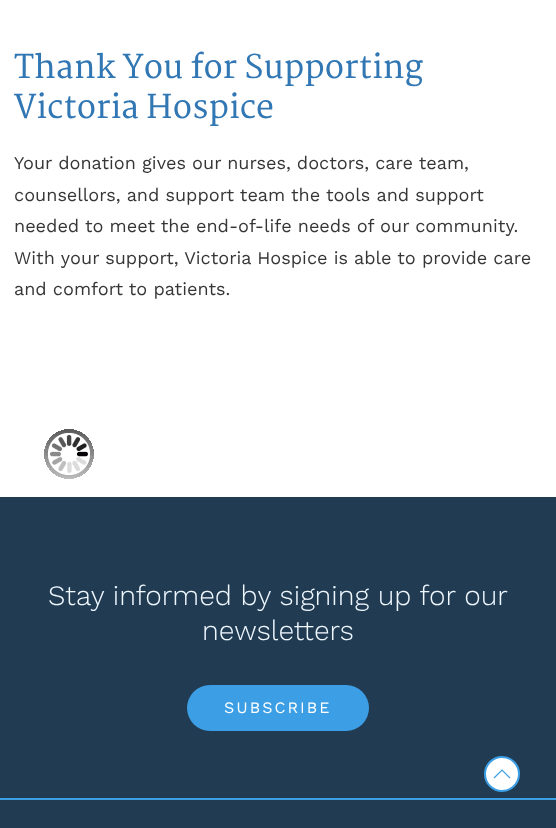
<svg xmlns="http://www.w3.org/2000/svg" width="556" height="828">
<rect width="100%" height="100%" fill="#fff"/>
<text x="14" y="78" style="font-family:Martel;font-size:32px;font-weight:600;fill:#3177b4">Thank You for Supporting</text>
<text x="14" y="118" style="font-family:Martel;font-size:32px;font-weight:600;fill:#3177b4">Victoria Hospice</text>
<text x="14" y="169" style="font-family:Work Sans;font-size:18px;fill:#363636">Your donation gives our nurses, doctors, care team,</text>
<text x="14" y="201" style="font-family:Work Sans;font-size:18px;fill:#363636">counsellors, and support team the tools and support</text>
<text x="14" y="232" style="font-family:Work Sans;font-size:18px;fill:#363636">needed to meet the end-of-life needs of our community.</text>
<text x="14" y="264" style="font-family:Work Sans;font-size:18px;fill:#363636">With your support, Victoria Hospice is able to provide care</text>
<text x="14" y="295" style="font-family:Work Sans;font-size:18px;fill:#363636">and comfort to patients.</text>
<image x="44" y="429" width="50" height="50" href="media/1.png"/>
<rect y="497" width="556" height="331" fill="#213c52"/>
<text x="48" y="605" style="font-family:Work Sans;font-size:28px;font-weight:300;fill:#eff7ff">Stay informed by signing up for our</text>
<text x="202" y="640" style="font-family:Work Sans;font-size:28px;font-weight:300;fill:#eff7ff">newsletters</text>
<rect x="187" y="685" width="182" height="46" rx="23" fill="#3c9fe5"/>
<text x="224" y="713" style="font-family:Work Sans;font-size:16px;letter-spacing:2px;fill:#fff">SUBSCRIBE</text>
<rect y="798" width="556" height="2" fill="#3c9fe5"/>
<circle cx="502" cy="774" r="17" fill="#fff" stroke="#3c9fe5" stroke-width="2"/>
<path d="M494 778l8-8l8 8" fill="none" stroke="#3c9fe5" stroke-width="1.2"/>
</svg>
